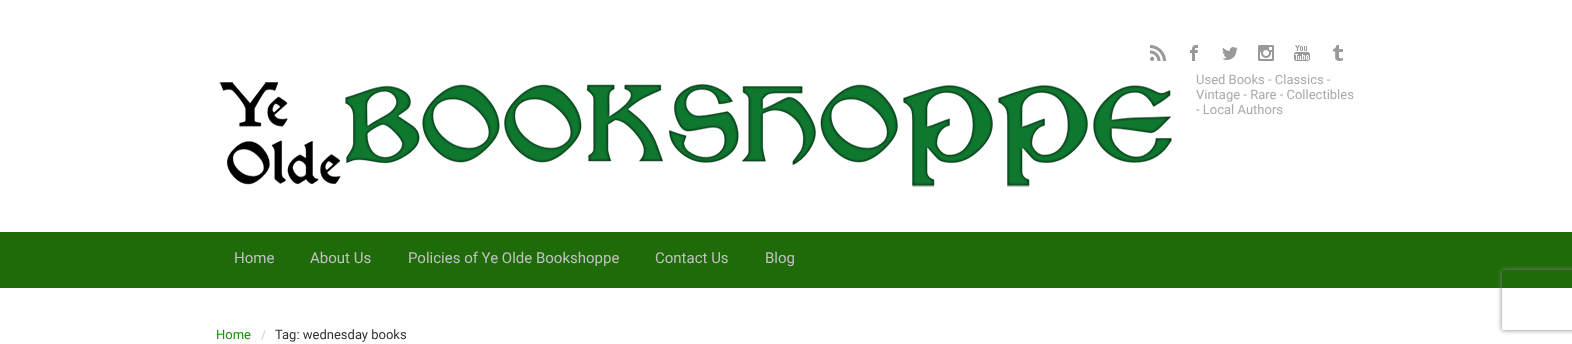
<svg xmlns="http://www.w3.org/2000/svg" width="1572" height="344">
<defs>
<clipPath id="clip1"><path d="M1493 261h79v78h-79zm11 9h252c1 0 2 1 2 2v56c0 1-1 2-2 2h-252c-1 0-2-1-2-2v-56c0-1 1-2 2-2z" clip-rule="evenodd"/></clipPath>
</defs>
<rect width="100%" height="100%" fill="#fff"/>
<image x="1150" y="45" width="16" height="16" href="media/1.png"/>
<image x="1190" y="45" width="8" height="16" href="media/2.png"/>
<image x="1222" y="47" width="16" height="13" href="media/3.png"/>
<image x="1258" y="45" width="16" height="16" href="media/4.png"/>
<image x="1294" y="45" width="16" height="16" href="media/5.png"/>
<image x="1333" y="45" width="10" height="16" href="media/6.png"/>
<image x="219" y="82" width="953" height="105" href="media/7.png"/>
<text x="1196" y="84" style="font-family:Roboto;font-size:13px;fill:#aaa">Used Books - Classics -</text>
<text x="1196" y="99" style="font-family:Roboto;font-size:13px;fill:#aaa">Vintage - Rare - Collectibles</text>
<text x="1196" y="114" style="font-family:Roboto;font-size:13px;fill:#aaa">- Local Authors</text>
<rect y="232" width="1572" height="56" fill="#1f6b0a"/>
<text x="234" y="263" style="font-family:Roboto;font-size:15px;fill:#c1c1c1">Home</text>
<text x="310" y="263" style="font-family:Roboto;font-size:15px;fill:#c1c1c1">About Us</text>
<text x="408" y="263" style="font-family:Roboto;font-size:15px;fill:#c1c1c1">Policies of Ye Olde Bookshoppe</text>
<text x="655" y="263" style="font-family:Roboto;font-size:15px;fill:#c1c1c1">Contact Us</text>
<text x="765" y="263" style="font-family:Roboto;font-size:15px;fill:#c1c1c1">Blog</text>
<text x="216" y="339" style="font-family:Roboto;font-size:13px;fill:#129301">Home</text>
<text x="261" y="339" style="font-family:Roboto;font-size:12px;fill:#ccc">/</text>
<text x="275" y="339" style="font-family:Roboto;font-size:13px;fill:#333">Tag: wednesday books</text>
<g clip-path="url(#clip1)">
<rect x="1502" y="270" width="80" height="60" rx="2" fill="#808080" filter="blur(2.5px)"/>
</g>
</svg>
